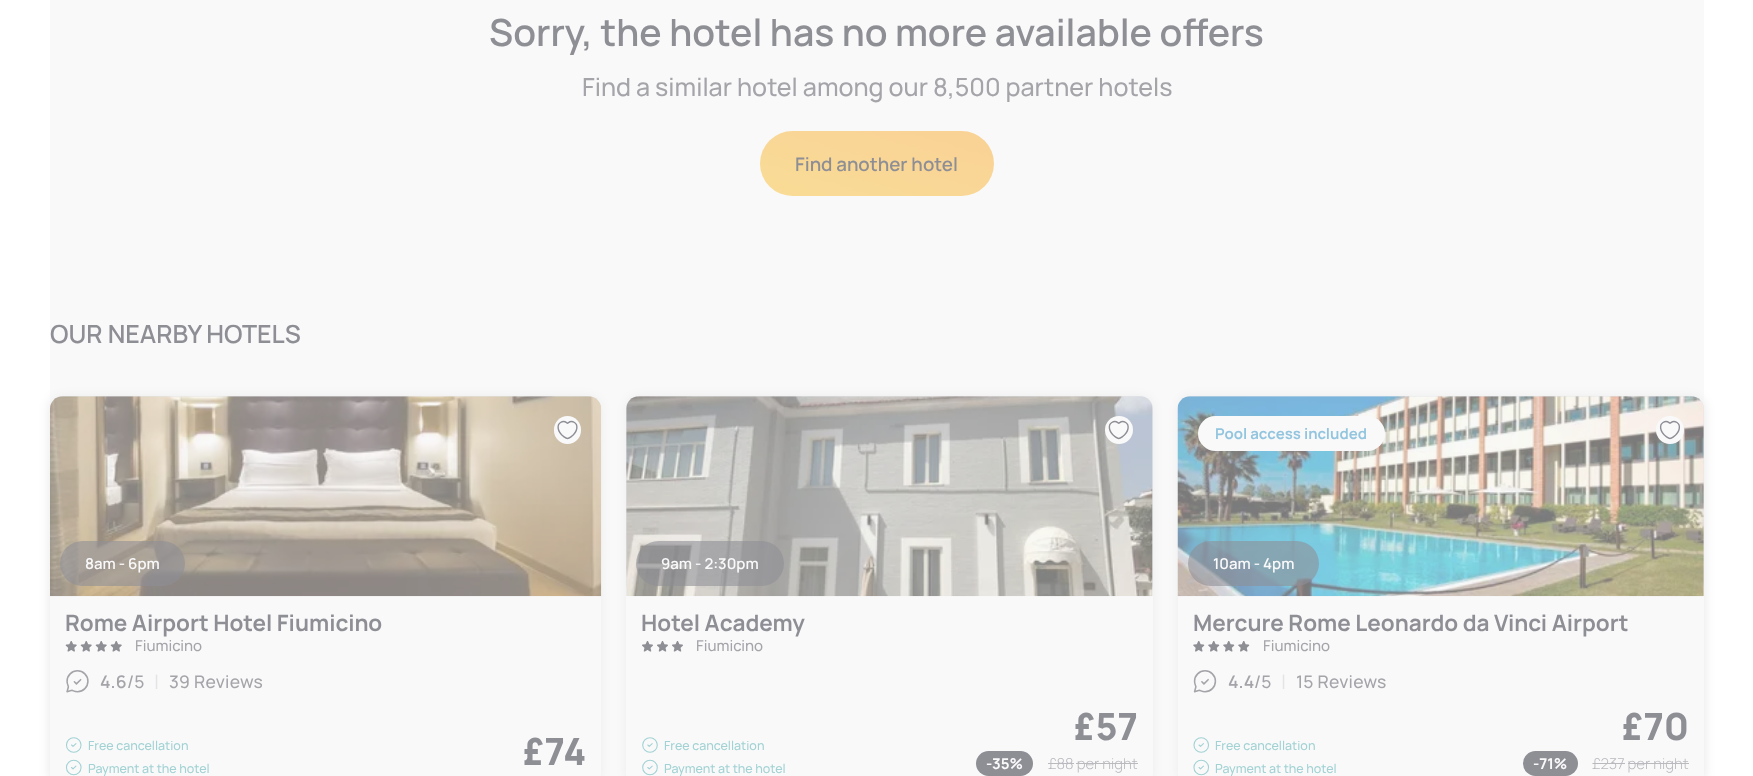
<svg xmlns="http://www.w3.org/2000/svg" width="1753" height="776">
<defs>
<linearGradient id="g1" gradientUnits="userSpaceOnUse" x1="894" y1="103" x2="860" y2="224"><stop offset="0" stop-color="#ffaf36"/><stop offset="1" stop-color="#ffc536"/></linearGradient>
<clipPath id="clip1"><path d="M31 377h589v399h-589zm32 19h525c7 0 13 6 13 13v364c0 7-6 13-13 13h-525c-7 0-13-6-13-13v-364c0-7 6-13 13-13z" clip-rule="evenodd"/></clipPath>
</defs>
<rect width="100%" height="100%" fill="#fff"/>
<text x="489" y="46" style="font-family:Manrope;font-size:37.5px;font-weight:600;fill:#292935">Sorry, the hotel has no more available offers</text>
<text x="582" y="96" style="font-family:Manrope;font-size:25px;font-weight:500;fill:#54545d">Find a similar hotel among our 8,500 partner hotels</text>
<rect x="760" y="131" width="234" height="65" rx="32.5" fill="url(#g1)"/>
<text x="795" y="171" style="font-family:Manrope;font-size:18.75px;font-weight:600;fill:#292935">Find another hotel</text>
<text x="50" y="343" style="font-family:Manrope;font-size:25px;font-weight:600;fill:#292935">OUR NEARBY HOTELS</text>
<g clip-path="url(#clip1)">
<rect x="50" y="396" width="551" height="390" rx="13" fill="#0000001a" filter="blur(6px)"/>
</g>
<rect x="50" y="396" width="551" height="200" rx="13" fill="#d1d5db"/>
<image x="50" y="396" width="552" height="201" href="media/1.png"/>
<rect x="554" y="416" width="27" height="28" rx="13.5" fill="#fff"/>
<image x="557" y="420" width="21" height="20" href="media/2.png"/>
<rect x="60" y="541" width="125" height="45" rx="22.5" fill="#29293599"/>
<text x="85" y="569" style="font-family:Manrope;font-size:15px;font-weight:600;fill:#fff">8am - 6pm</text>
<text x="65" y="631" style="font-family:Manrope;font-size:22.5px;font-weight:bold;fill:#292935">Rome Airport Hotel Fiumicino</text>
<image x="65" y="641" width="12" height="11" href="media/3.png"/>
<image x="80" y="641" width="12" height="11" href="media/3.png"/>
<image x="95" y="641" width="12" height="11" href="media/3.png"/>
<image x="110" y="641" width="12" height="11" href="media/3.png"/>
<text x="135" y="651" style="font-family:Manrope;font-size:15px;font-weight:500;fill:#54545d">Fiumicino</text>
<image x="66" y="670" width="23" height="23" href="media/4.png"/>
<text x="100" y="688" style="font-family:Manrope;font-size:17.5px;font-weight:600;letter-spacing:0.25px;fill:#54545d">4.6</text>
<text x="127" y="688" style="font-family:Manrope;font-size:17.5px;font-weight:500;letter-spacing:0.25px;fill:#54545d">/5</text>
<text x="154" y="689" style="font-family:Manrope;font-size:20px;fill:#d4d4d7">|</text>
<text x="169" y="688" style="font-family:Manrope;font-size:17.5px;font-weight:500;letter-spacing:0.25px;fill:#54545d">39 Reviews</text>
<image x="66" y="737" width="16" height="16" href="media/5.png"/>
<text x="88" y="750" style="font-family:Manrope;font-size:12.5px;font-weight:500;fill:#51b0b0">Free cancellation</text>
<image x="65" y="759" width="17" height="17" href="media/6.png"/>
<text x="88" y="773" style="font-family:Manrope;font-size:12.5px;font-weight:500;fill:#51b0b0">Payment at the hotel</text>
<text x="523" y="765" style="font-family:Manrope;font-size:37.5px;font-weight:800;fill:#292935">£74</text>
<rect x="626" y="396" width="527" height="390" rx="13" fill="#0000001a" filter="blur(6px)"/>
<rect x="626" y="396" width="527" height="200" rx="13" fill="#d1d5db"/>
<path d="M626 596h527v177c0 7-6 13-13 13h-501c-7 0-13-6-13-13z" fill="#fff"/>
<image x="626" y="396" width="527" height="201" href="media/7.png"/>
<circle cx="1119" cy="430" r="14" fill="#fff"/>
<image x="1108" y="420" width="21" height="20" href="media/8.png"/>
<rect x="636" y="541" width="148" height="45" rx="22.5" fill="#29293599"/>
<text x="661" y="569" style="font-family:Manrope;font-size:15px;font-weight:600;fill:#fff">9am - 2:30pm</text>
<text x="641" y="631" style="font-family:Manrope;font-size:22.5px;font-weight:bold;fill:#292935">Hotel Academy</text>
<image x="642" y="641" width="11" height="11" href="media/9.png"/>
<image x="657" y="641" width="11" height="11" href="media/9.png"/>
<image x="672" y="641" width="11" height="11" href="media/9.png"/>
<text x="696" y="651" style="font-family:Manrope;font-size:15px;font-weight:500;fill:#54545d">Fiumicino</text>
<image x="642" y="737" width="16" height="16" href="media/10.png"/>
<text x="664" y="750" style="font-family:Manrope;font-size:12.5px;font-weight:500;fill:#51b0b0">Free cancellation</text>
<image x="642" y="759" width="16" height="17" href="media/11.png"/>
<text x="664" y="773" style="font-family:Manrope;font-size:12.5px;font-weight:500;fill:#51b0b0">Payment at the hotel</text>
<text x="1074" y="740" style="font-family:Manrope;font-size:37.5px;font-weight:800;fill:#292935">£57</text>
<rect x="976" y="751" width="57" height="25" rx="12.5" fill="#292935"/>
<text x="986" y="769" style="font-family:Manrope;font-size:15px;font-weight:bold;fill:#fff">-</text>
<text x="992" y="769" style="font-family:Manrope;font-size:15px;font-weight:bold;fill:#fff">35%</text>
<text x="1048" y="769" style="font-family:Manrope;font-size:15px;font-weight:300;fill:#7f7f86">£88 per night</text>
<rect x="1048" y="763" width="26" height="1" fill="#7f7f86"/>
<rect x="1076" y="763" width="62" height="1" fill="#7f7f86"/>
<rect x="1178" y="396" width="526" height="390" rx="13" fill="#0000001a" filter="blur(6px)"/>
<rect x="1178" y="396" width="526" height="200" rx="13" fill="#d1d5db"/>
<path d="M1178 596h526v177c0 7-6 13-13 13h-500c-7 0-13-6-13-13z" fill="#fff"/>
<image x="1177" y="396" width="527" height="201" href="media/12.png"/>
<rect x="1198" y="416" width="187" height="35" rx="17.5" fill="#fff"/>
<text x="1215" y="439" style="font-family:Manrope;font-size:15px;font-weight:bold;fill:#3597c8">Pool access included</text>
<circle cx="1670" cy="430" r="14" fill="#fff"/>
<image x="1659" y="420" width="21" height="20" href="media/13.png"/>
<rect x="1188" y="541" width="131" height="45" rx="22.5" fill="#29293599"/>
<text x="1213" y="569" style="font-family:Manrope;font-size:15px;font-weight:600;fill:#fff">10am - 4pm</text>
<text x="1193" y="631" style="font-family:Manrope;font-size:22.5px;font-weight:bold;fill:#292935">Mercure Rome Leonardo da Vinci Airport</text>
<image x="1193" y="641" width="12" height="11" href="media/14.png"/>
<image x="1208" y="641" width="12" height="11" href="media/14.png"/>
<image x="1223" y="641" width="12" height="11" href="media/14.png"/>
<image x="1238" y="641" width="12" height="11" href="media/14.png"/>
<text x="1263" y="651" style="font-family:Manrope;font-size:15px;font-weight:500;fill:#54545d">Fiumicino</text>
<image x="1193" y="670" width="24" height="23" href="media/15.png"/>
<text x="1228" y="688" style="font-family:Manrope;font-size:17.5px;font-weight:600;letter-spacing:0.25px;fill:#54545d">4.4</text>
<text x="1254" y="688" style="font-family:Manrope;font-size:17.5px;font-weight:500;letter-spacing:0.25px;fill:#54545d">/5</text>
<text x="1281" y="689" style="font-family:Manrope;font-size:20px;fill:#d4d4d7">|</text>
<text x="1296" y="688" style="font-family:Manrope;font-size:17.5px;font-weight:500;letter-spacing:0.25px;fill:#54545d">15 Reviews</text>
<image x="1193" y="737" width="16" height="16" href="media/16.png"/>
<text x="1215" y="750" style="font-family:Manrope;font-size:12.5px;font-weight:500;fill:#51b0b0">Free cancellation</text>
<image x="1193" y="759" width="17" height="17" href="media/17.png"/>
<text x="1215" y="773" style="font-family:Manrope;font-size:12.5px;font-weight:500;fill:#51b0b0">Payment at the hotel</text>
<text x="1622" y="740" style="font-family:Manrope;font-size:37.5px;font-weight:800;fill:#292935">£70</text>
<rect x="1523" y="751" width="55" height="25" rx="12.5" fill="#292935"/>
<text x="1533" y="769" style="font-family:Manrope;font-size:15px;font-weight:bold;fill:#fff">-71%</text>
<text x="1592" y="769" style="font-family:Manrope;font-size:15px;font-weight:300;fill:#7f7f86">£237 per night</text>
<rect x="1593" y="763" width="32" height="1" fill="#7f7f86"/>
<rect x="1628" y="763" width="61" height="1" fill="#7f7f86"/>
<rect x="50" width="1654" height="776" fill="#f3f4f680"/>
</svg>
